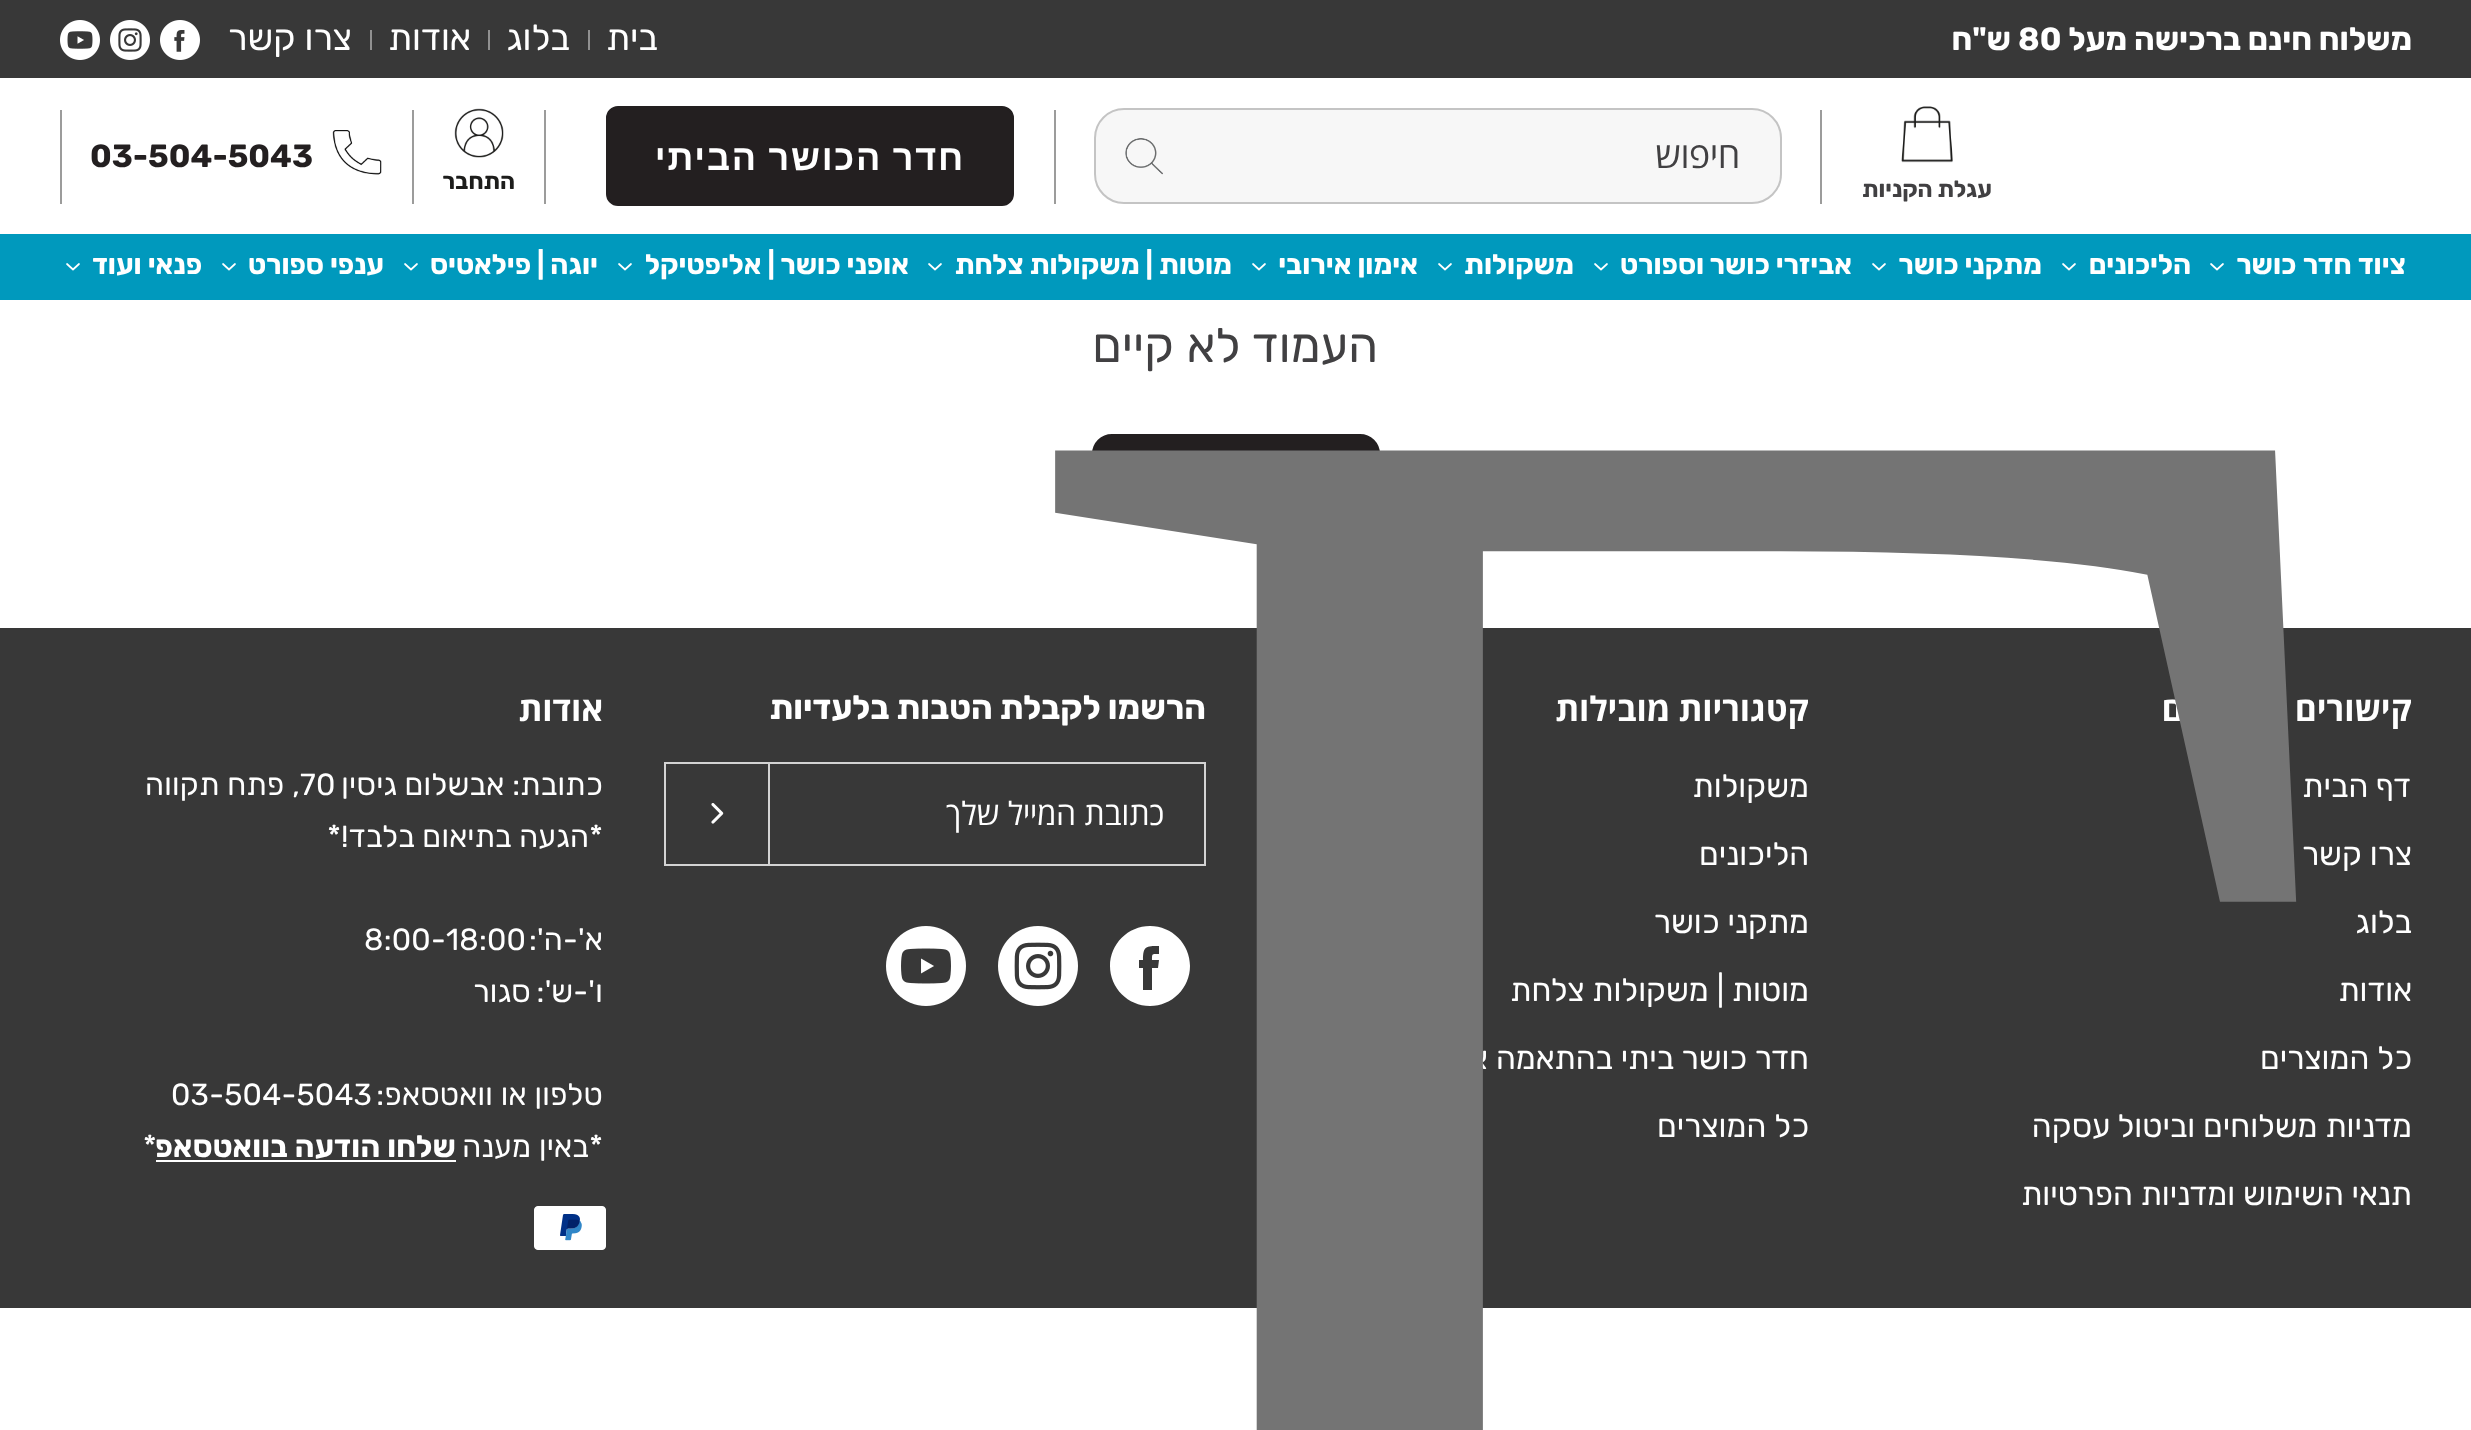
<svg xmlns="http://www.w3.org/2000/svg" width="2471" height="1430">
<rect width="100%" height="100%" fill="#fff"/>
<rect width="2471" height="78" fill="#383838"/>
<text x="2412" y="50" style="font-family:Rubik;font-size:32px;font-weight:bold;direction:rtl;fill:#fff">משלוח חינם ברכישה מעל</text>
<text x="2018" y="50" style="font-family:Rubik;font-size:32px;font-weight:bold;fill:#fff">80</text>
<text x="2011" y="50" style="font-family:Rubik;font-size:32px;font-weight:bold;direction:rtl;fill:#fff">ש"ח</text>
<text x="658" y="50" style="font-family:Rubik;font-size:36px;direction:rtl;fill:#fff">בית</text>
<rect x="588" y="30" width="2" height="20" fill="#919191"/>
<text x="570" y="50" style="font-family:Rubik;font-size:36px;direction:rtl;fill:#fff">בלוג</text>
<rect x="488" y="30" width="2" height="20" fill="#919191"/>
<text x="471" y="50" style="font-family:Rubik;font-size:36px;direction:rtl;fill:#fff">אודות</text>
<rect x="370" y="30" width="2" height="20" fill="#919191"/>
<text x="352" y="50" style="font-family:Rubik;font-size:36px;direction:rtl;fill:#fff">צרו קשר</text>
<image x="160" y="20" width="40" height="40" href="media/1.png"/>
<image x="110" y="20" width="40" height="40" href="media/2.png"/>
<image x="60" y="20" width="40" height="40" href="media/3.png"/>
<rect x="1820" y="110" width="2" height="94" fill="#9c9c9b"/>
<rect x="1095" y="109" width="686" height="94" rx="29" fill="#f7f7f7" stroke="#c4c4c4" stroke-width="2"/>
<text x="1740" y="168" style="font-family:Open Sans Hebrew;font-size:36px;direction:rtl;fill:#414042">חיפוש</text>
<image x="1125" y="138" width="38" height="37" href="media/4.png"/>
<rect x="1054" y="110" width="2" height="94" fill="#9c9c9b"/>
<rect x="607" y="107" width="406" height="98" rx="11" fill="#231f20" stroke="#231f20" stroke-width="2"/>
<text x="965" y="170" word-spacing="-1" style="font-family:Liberation Sans;font-size:36px;font-weight:bold;letter-spacing:1.75px;direction:rtl;fill:#fff">חדר הכושר הביתי</text>
<image x="1901" y="106" width="52" height="57" href="media/5.png"/>
<text x="1992" y="197" style="font-family:Rubik;font-size:23.25px;font-weight:bold;direction:rtl;fill:#414042">עגלת הקניות</text>
<image x="332" y="130" width="50" height="45" href="media/6.png"/>
<text x="90" y="167" style="font-family:Rubik;font-size:32px;font-weight:bold;fill:#231f20">03-504-5043</text>
<rect x="60" y="110" width="2" height="94" fill="#9c9c9b"/>
<rect x="544" y="110" width="2" height="94" fill="#9c9c9b"/>
<image x="454" y="108" width="50" height="50" href="media/7.png"/>
<text x="515" y="189" style="font-family:Rubik;font-size:23.25px;font-weight:bold;direction:rtl;fill:#1d1d1b">התחבר</text>
<rect x="412" y="110" width="2" height="94" fill="#9c9c9b"/>
<rect y="234" width="2471" height="66" fill="#0099bd"/>
<text x="2406" y="274" word-spacing="1" style="font-family:Rubik;font-size:28px;font-weight:bold;direction:rtl;fill:#fff">ציוד חדר כושר</text>
<path d="M2211 264l6 5.5l6-5.5" fill="none" stroke="#fff" stroke-width="1.7" stroke-linecap="round" stroke-linejoin="round"/>
<text x="2191" y="274" style="font-family:Rubik;font-size:28px;font-weight:bold;direction:rtl;fill:#fff">הליכונים</text>
<path d="M2063 264l6 5.5l6-5.5" fill="none" stroke="#fff" stroke-width="1.7" stroke-linecap="round" stroke-linejoin="round"/>
<text x="2042" y="274" style="font-family:Rubik;font-size:28px;font-weight:bold;direction:rtl;fill:#fff">מתקני כושר</text>
<path d="M1873 264l6 5.5l6-5.5" fill="none" stroke="#fff" stroke-width="1.7" stroke-linecap="round" stroke-linejoin="round"/>
<text x="1852" y="274" style="font-family:Rubik;font-size:28px;font-weight:bold;direction:rtl;fill:#fff">אביזרי כושר וספורט</text>
<path d="M1595 264l6 5.5l6-5.5" fill="none" stroke="#fff" stroke-width="1.7" stroke-linecap="round" stroke-linejoin="round"/>
<text x="1574" y="274" style="font-family:Rubik;font-size:28px;font-weight:bold;direction:rtl;fill:#fff">משקולות</text>
<path d="M1439 264l6 5.5l6-5.5" fill="none" stroke="#fff" stroke-width="1.7" stroke-linecap="round" stroke-linejoin="round"/>
<text x="1418" y="274" style="font-family:Rubik;font-size:28px;font-weight:bold;direction:rtl;fill:#fff">אימון אירובי</text>
<path d="M1253 264l6 5.5l6-5.5" fill="none" stroke="#fff" stroke-width="1.7" stroke-linecap="round" stroke-linejoin="round"/>
<text x="1232" y="274" style="font-family:Rubik;font-size:28px;font-weight:bold;direction:rtl;fill:#fff">מוטות | משקולות צלחת</text>
<path d="M929 264l6 5.5l6-5.5" fill="none" stroke="#fff" stroke-width="1.7" stroke-linecap="round" stroke-linejoin="round"/>
<text x="909" y="274" style="font-family:Rubik;font-size:28px;font-weight:bold;direction:rtl;fill:#fff">אופני כושר | אליפטיקל</text>
<path d="M619 264l6 5.5l6-5.5" fill="none" stroke="#fff" stroke-width="1.7" stroke-linecap="round" stroke-linejoin="round"/>
<text x="598" y="274" style="font-family:Rubik;font-size:28px;font-weight:bold;direction:rtl;fill:#fff">יוגה | פילאטיס</text>
<path d="M405 264l6 5.5l6-5.5" fill="none" stroke="#fff" stroke-width="1.7" stroke-linecap="round" stroke-linejoin="round"/>
<text x="384" y="274" style="font-family:Rubik;font-size:28px;font-weight:bold;direction:rtl;fill:#fff">ענפי ספורט</text>
<path d="M223 264l6 5.5l6-5.5" fill="none" stroke="#fff" stroke-width="1.7" stroke-linecap="round" stroke-linejoin="round"/>
<text x="202" y="274" style="font-family:Rubik;font-size:28px;font-weight:bold;direction:rtl;fill:#fff">פנאי ועוד</text>
<path d="M67 264l6 5.5l6-5.5" fill="none" stroke="#fff" stroke-width="1.7" stroke-linecap="round" stroke-linejoin="round"/>
<text x="1378" y="362" word-spacing="1" style="font-family:Rubik;font-size:48px;direction:rtl;fill:#414042">העמוד לא קיים</text>
<rect x="1093" y="435" width="286" height="78" rx="19" fill="#231f20" stroke="#231f20" stroke-width="2"/>
<text x="1347" y="483" word-spacing="-1" style="font-family:Liberation Sans;font-size:30.75px;font-weight:bold;letter-spacing:1.5px;direction:rtl;fill:#fff">חזור לדף הבית</text>
<rect y="628" width="2471" height="680" fill="#383838"/>
<text x="2412" y="721" style="font-family:Open Sans Hebrew;font-size:33.6px;font-weight:bold;direction:rtl;fill:#fff">קישורים רלוונטים</text>
<text x="2411" y="797" style="font-family:Rubik;font-size:32px;direction:rtl;fill:#fff">דף הבית</text>
<text x="2412" y="865" style="font-family:Rubik;font-size:32px;direction:rtl;fill:#fff">צרו קשר</text>
<text x="2412" y="933" style="font-family:Rubik;font-size:32px;direction:rtl;fill:#fff">בלוג</text>
<text x="2412" y="1001" style="font-family:Rubik;font-size:32px;direction:rtl;fill:#fff">אודות</text>
<text x="2412" y="1069" word-spacing="1" style="font-family:Rubik;font-size:32px;direction:rtl;fill:#fff">כל המוצרים</text>
<text x="2412" y="1137" style="font-family:Rubik;font-size:32px;direction:rtl;fill:#fff">מדניות משלוחים וביטול עסקה</text>
<text x="2412" y="1205" style="font-family:Rubik;font-size:32px;direction:rtl;fill:#fff">תנאי השימוש ומדניות הפרטיות</text>
<text x="1809" y="721" style="font-family:Open Sans Hebrew;font-size:33.6px;font-weight:bold;direction:rtl;fill:#fff">קטגוריות מובילות</text>
<text x="1809" y="797" style="font-family:Rubik;font-size:32px;direction:rtl;fill:#fff">משקולות</text>
<text x="1809" y="865" style="font-family:Rubik;font-size:32px;direction:rtl;fill:#fff">הליכונים</text>
<text x="1809" y="933" style="font-family:Rubik;font-size:32px;direction:rtl;fill:#fff">מתקני כושר</text>
<text x="1809" y="1001" style="font-family:Rubik;font-size:32px;direction:rtl;fill:#fff">מוטות | משקולות צלחת</text>
<text x="1809" y="1069" word-spacing="0.5" style="font-family:Rubik;font-size:32px;direction:rtl;fill:#fff">חדר כושר ביתי בהתאמה אישית</text>
<text x="1809" y="1137" word-spacing="1" style="font-family:Rubik;font-size:32px;direction:rtl;fill:#fff">כל המוצרים</text>
<text x="1206" y="719" style="font-family:Rubik;font-size:33.6px;font-weight:bold;direction:rtl;fill:#fff">הרשמו לקבלת הטבות בלעדיות</text>
<rect x="769" y="763" width="436" height="102" fill="none" stroke="#d3d3d3" stroke-width="2"/>
<text x="1164" y="825" style="font-family:Open Sans Hebrew;font-size:32px;direction:rtl;fill:#fff">כתובת המייל שלך</text>
<rect x="664" y="762" width="104" height="2" fill="#d3d3d3"/>
<rect x="664" y="864" width="104" height="2" fill="#d3d3d3"/>
<rect x="664" y="762" width="2" height="104" fill="#d3d3d3"/>
<image x="711" y="803" width="13" height="21" href="media/8.png"/>
<path d="M1110 966c0-22 18-40 40-40c22 0 40 18 40 40c0 22-18 40-40 40c-22 0-40-18-40-40zm42 24v-22h6l1-8h-7c0-7 0-6 7-6v-8c-13 0-16 0-16 14h-4v8h4v22z" fill="#fff"/>
<image x="998" y="926" width="80" height="80" href="media/9.png"/>
<image x="886" y="926" width="80" height="80" href="media/10.png"/>
<text x="603" y="721" style="font-family:Open Sans Hebrew;font-size:33.6px;font-weight:bold;direction:rtl;fill:#fff">אודות</text>
<text x="603" y="795" style="font-family:Rubik;font-size:30.5px;letter-spacing:0.25px;direction:rtl;fill:#fff">כתובת: אבשלום גיסין</text>
<text x="300" y="795" style="font-family:Rubik;font-size:30.5px;letter-spacing:0.25px;fill:#fff">70</text>
<text x="300" y="795" style="font-family:Rubik;font-size:30.5px;letter-spacing:0.25px;direction:rtl;fill:#fff">, פתח תקווה</text>
<text x="603" y="847" style="font-family:Rubik;font-size:30.5px;letter-spacing:0.25px;direction:rtl;fill:#fff">*הגעה בתיאום בלבד!*</text>
<text x="603" y="950" style="font-family:Rubik;font-size:30.5px;letter-spacing:0.25px;direction:rtl;fill:#fff">א'-ה':</text>
<text x="364" y="950" style="font-family:Rubik;font-size:30.5px;letter-spacing:0.25px;fill:#fff">8:00-18:00</text>
<text x="603" y="1002" word-spacing="-2" style="font-family:Rubik;font-size:30.5px;letter-spacing:0.25px;direction:rtl;fill:#fff">ו'-ש': סגור</text>
<text x="603" y="1105" style="font-family:Rubik;font-size:30.5px;letter-spacing:0.25px;direction:rtl;fill:#fff">טלפון או וואטסאפ:</text>
<text x="171" y="1105" style="font-family:Rubik;font-size:30.5px;letter-spacing:0.25px;fill:#fff">03-504-5043</text>
<text x="603" y="1157" style="font-family:Rubik;font-size:30.5px;letter-spacing:0.25px;direction:rtl;fill:#fff">*באין מענה</text>
<text x="456" y="1157" style="font-family:Rubik;font-size:30.5px;font-weight:bold;letter-spacing:0.25px;direction:rtl;fill:#fff">שלחו הודעה בוואטסאפ</text>
<rect x="156" y="1160" width="300" height="2" fill="#fff"/>
<text x="143" y="1157" style="font-family:Rubik;font-size:30.5px;letter-spacing:0.25px;fill:#fff">*</text>
<image x="534" y="1206" width="72" height="44" href="media/11.png"/>
<text x="986" y="2022" style="font-family:Liberation Serif;font-size:2400px;fill:#747474">Γ</text>
</svg>
